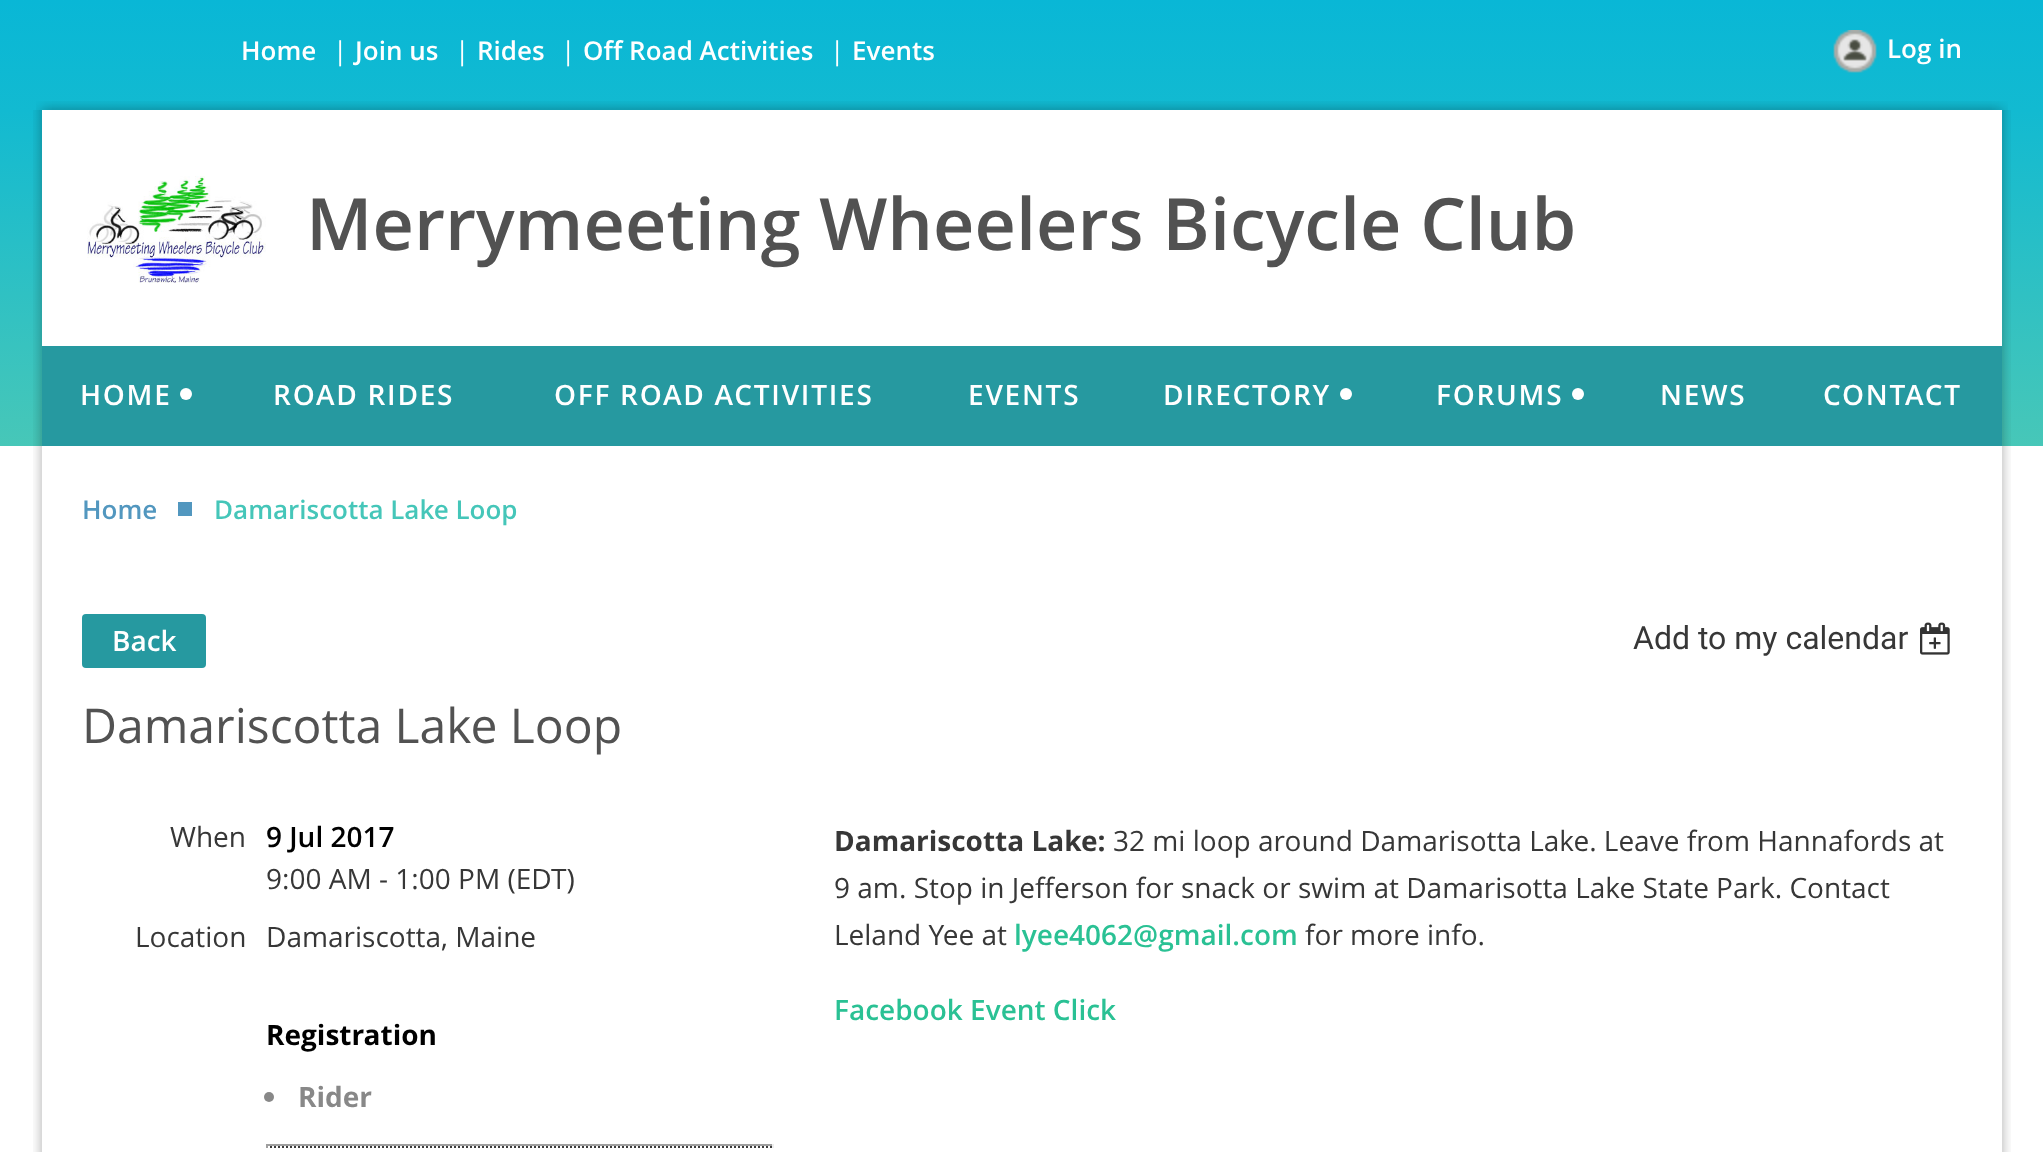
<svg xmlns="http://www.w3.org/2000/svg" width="2043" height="1152">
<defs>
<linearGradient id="g1" gradientUnits="userSpaceOnUse" x1="1022" y1="0" x2="1022" y2="110"><stop offset="0" stop-color="#09b7d6"/><stop offset="1" stop-color="#12bad1"/></linearGradient>
<linearGradient id="g2" gradientUnits="userSpaceOnUse" x1="1022" y1="110" x2="1022" y2="346"><stop offset="0" stop-color="#12bad1"/><stop offset="1" stop-color="#38c3bf"/></linearGradient>
<linearGradient id="g3" gradientUnits="userSpaceOnUse" x1="1022" y1="346" x2="1022" y2="446"><stop offset="0" stop-color="#38c3bf"/><stop offset="1" stop-color="#47c7b8"/></linearGradient>
</defs>
<rect width="100%" height="100%" fill="#fff"/>
<rect width="2043" height="110" fill="url(#g1)"/>
<text x="241" y="60" style="font-family:Open Sans;font-size:26px;font-weight:600;fill:#fff">Home</text>
<text x="333" y="60" style="font-family:Open Sans;font-size:26px;fill:#fff">|</text>
<text x="355" y="60" style="font-family:Open Sans;font-size:26px;font-weight:600;fill:#fff">Join us</text>
<text x="455" y="60" style="font-family:Open Sans;font-size:26px;fill:#fff">|</text>
<text x="477" y="60" style="font-family:Open Sans;font-size:26px;font-weight:600;fill:#fff">Rides</text>
<text x="561" y="60" style="font-family:Open Sans;font-size:26px;fill:#fff">|</text>
<text x="583" y="60" style="font-family:Open Sans;font-size:26px;font-weight:600;fill:#fff">Off Road Activities</text>
<text x="830" y="60" style="font-family:Open Sans;font-size:26px;fill:#fff">|</text>
<text x="852" y="60" style="font-family:Open Sans;font-size:26px;font-weight:600;fill:#fff">Events</text>
<image x="1833" y="30" width="44" height="43" href="media/1.png"/>
<text x="1887" y="58" style="font-family:Open Sans;font-size:26px;font-weight:600;fill:#fff">Log in</text>
<image x="36" y="101" width="1972" height="9" href="media/2.png"/>
<image x="52" y="101" width="1940" height="9" href="media/3.png"/>
<rect y="110" width="2043" height="236" fill="url(#g2)"/>
<image x="33" y="110" width="1978" height="236" href="media/4.png"/>
<rect x="42" y="110" width="1960" height="236" fill="#fff"/>
<image x="87" y="176" width="179" height="107" href="media/5.png"/>
<text x="306" y="250" style="font-family:Open Sans;font-size:72px;font-weight:600;fill:#525252">Merrymeeting Wheelers Bicycle Club</text>
<rect y="346" width="2043" height="100" fill="url(#g3)"/>
<image x="33" y="346" width="1978" height="100" href="media/6.png"/>
<rect x="42" y="346" width="1960" height="100" fill="#2699a0"/>
<text x="80" y="405" style="font-family:Open Sans;font-size:28px;font-weight:600;letter-spacing:1.75px;fill:#fff">HOME</text>
<circle cx="186" cy="394" r="6" fill="#fff"/>
<text x="273" y="405" style="font-family:Open Sans;font-size:28px;font-weight:600;letter-spacing:1.75px;fill:#fff">ROAD RIDES</text>
<text x="554" y="405" style="font-family:Open Sans;font-size:28px;font-weight:600;letter-spacing:1.75px;fill:#fff">OFF ROAD ACTIVITIES</text>
<text x="968" y="405" style="font-family:Open Sans;font-size:28px;font-weight:600;letter-spacing:1.75px;fill:#fff">EVENTS</text>
<text x="1163" y="405" style="font-family:Open Sans;font-size:28px;font-weight:600;letter-spacing:1.75px;fill:#fff">DIRECTORY</text>
<circle cx="1346" cy="394" r="6" fill="#fff"/>
<text x="1436" y="405" style="font-family:Open Sans;font-size:28px;font-weight:600;letter-spacing:1.75px;fill:#fff">FORUMS</text>
<circle cx="1578" cy="394" r="6" fill="#fff"/>
<text x="1660" y="405" style="font-family:Open Sans;font-size:28px;font-weight:600;letter-spacing:1.75px;fill:#fff">NEWS</text>
<text x="1823" y="405" style="font-family:Open Sans;font-size:28px;font-weight:600;letter-spacing:1.75px;fill:#fff">CONTACT</text>
<image x="33" y="446" width="1978" height="706" href="media/7.png"/>
<text x="82" y="519" style="font-family:Open Sans;font-size:26px;font-weight:600;fill:#5297bf">Home</text>
<rect x="178" y="502" width="14" height="14" fill="#5297bf"/>
<text x="214" y="519" style="font-family:Open Sans;font-size:26px;font-weight:600;fill:#45c6b9">Damariscotta Lake Loop</text>
<rect x="82" y="614" width="124" height="54" rx="4" fill="#2699a0"/>
<text x="112" y="651" style="font-family:Open Sans;font-size:28px;font-weight:600;fill:#fff">Back</text>
<text x="1633" y="649" style="font-family:Roboto;font-size:32px;fill:#373737">Add to my calendar</text>
<image x="1920" y="622" width="30" height="33" href="media/8.png"/>
<text x="82" y="743" style="font-family:Open Sans;font-size:48px;fill:#525252">Damariscotta Lake Loop</text>
<text x="170" y="847" style="font-family:Open Sans;font-size:28px;fill:#373737">When</text>
<text x="266" y="847" style="font-family:Open Sans;font-size:28px;font-weight:600;fill:#000">9 Jul 2017</text>
<text x="266" y="889" style="font-family:Open Sans;font-size:28px;fill:#373737">9:00 AM - 1:00 PM (EDT)</text>
<text x="135" y="947" style="font-family:Open Sans;font-size:28px;fill:#373737">Location</text>
<text x="266" y="947" style="font-family:Open Sans;font-size:28px;fill:#373737">Damariscotta, Maine</text>
<text x="266" y="1045" style="font-family:Open Sans;font-size:28px;font-weight:bold;fill:#000">Registration</text>
<circle cx="269" cy="1097" r="5" fill="#888"/>
<text x="298" y="1107" style="font-family:Open Sans;font-size:28px;font-weight:bold;fill:#888">Rider</text>
<rect x="266" y="1144" width="508" height="2" fill="#9f9f9f"/>
<rect x="772" y="1144" width="2" height="4" fill="#eee"/>
<path d="M266 1147h508" fill="none" stroke="#3c3c3c" stroke-width="2" stroke-dasharray="2 2"/>
<rect x="266" y="1144" width="2" height="4" fill="#9f9f9f"/>
<text x="834" y="851" style="font-family:Open Sans;font-size:28px;font-weight:bold;fill:#373737">Damariscotta Lake:</text>
<text x="1113" y="851" style="font-family:Open Sans;font-size:28px;fill:#373737">32 mi loop around Damarisotta Lake. Leave from Hannafords at</text>
<text x="834" y="898" style="font-family:Open Sans;font-size:28px;fill:#373737">9 am. Stop in Jefferson for snack or swim at Damarisotta Lake State Park. Contact</text>
<text x="834" y="945" style="font-family:Open Sans;font-size:28px;fill:#373737">Leland Yee at</text>
<text x="1014" y="945" style="font-family:Open Sans;font-size:28px;font-weight:600;fill:#2ac194">lyee4062@gmail.com</text>
<text x="1305" y="945" style="font-family:Open Sans;font-size:28px;fill:#373737">for more info.</text>
<text x="834" y="1020" style="font-family:Open Sans;font-size:28px;font-weight:600;fill:#2ac194">Facebook Event Click</text>
</svg>
